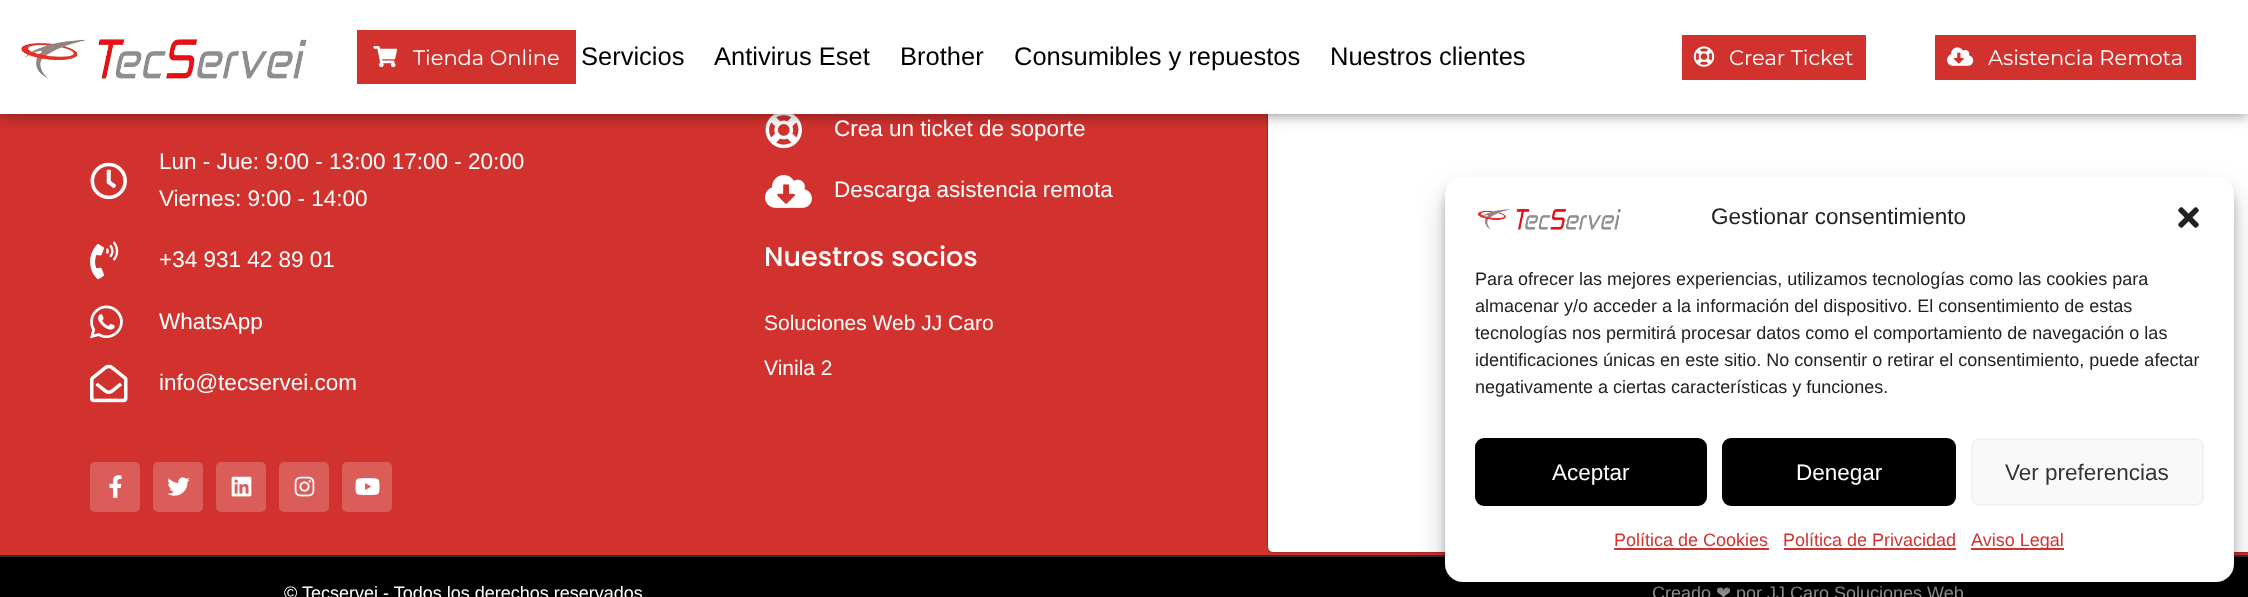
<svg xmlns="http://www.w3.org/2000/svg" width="2248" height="597">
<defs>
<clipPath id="clip1"><rect x="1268" y="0" width="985" height="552"/></clipPath>
</defs>
<rect width="100%" height="100%" fill="#d1322e"/>
<image x="765" y="114" width="37" height="35" href="media/14.png"/>
<g clip-path="url(#clip1)">
<rect x="1268" y="-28" width="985" height="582" rx="5" fill="#00000026" filter="blur(7.5px)"/>
</g>
<rect x="1268" y="-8" width="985" height="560" rx="5" fill="#00000080" filter="blur(1px)"/>
<rect x="1268" y="-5" width="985" height="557" rx="5" fill="#fff"/>
<rect width="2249" height="114" fill="#00000080" filter="blur(7.5px)"/>
<rect width="2248" height="114" fill="#fff"/>
<image x="21" y="39" width="286" height="40" href="media/1.png"/>
<rect x="357" y="30" width="219" height="54" fill="#d1322e"/>
<image x="373" y="46" width="25" height="22" href="media/2.png"/>
<text x="413" y="65" style="font-family:Montserrat;font-size:21px;fill:#fff">Tienda Online</text>
<text x="581" y="65" style="font-family:Liberation Sans;font-size:25.5px;fill:#000">Servicios</text>
<text x="714" y="65" style="font-family:Liberation Sans;font-size:25.5px;fill:#000">Antivirus Eset</text>
<text x="900" y="65" style="font-family:Liberation Sans;font-size:25.5px;fill:#000">Brother</text>
<text x="1014" y="65" style="font-family:Liberation Sans;font-size:25.5px;fill:#000">Consumibles y repuestos</text>
<text x="1330" y="65" style="font-family:Liberation Sans;font-size:25.5px;fill:#000">Nuestros clientes</text>
<rect x="1682" y="35" width="184" height="45" fill="#d1322e"/>
<image x="1693" y="46" width="22" height="21" href="media/3.png"/>
<text x="1729" y="65" style="font-family:Montserrat;font-size:21px;fill:#fff">Crear Ticket</text>
<rect x="1935" y="35" width="261" height="45" fill="#d1322e"/>
<image x="1947" y="47" width="27" height="19" href="media/4.png"/>
<text x="1988" y="65" style="font-family:Montserrat;font-size:21px;fill:#fff">Asistencia Remota</text>
<image x="90" y="162" width="37" height="38" href="media/5.png"/>
<text x="159" y="169" style="font-family:Liberation Sans;font-size:22.5px;fill:#fff">Lun - Jue: 9:00 - 13:00 17:00 - 20:00</text>
<text x="159" y="206" style="font-family:Liberation Sans;font-size:22.5px;fill:#fff">Viernes: 9:00 - 14:00</text>
<image x="90" y="241" width="29" height="39" href="media/6.png"/>
<text x="159" y="267" style="font-family:Liberation Sans;font-size:22.5px;fill:#fff">+34 931 42 89 01</text>
<image x="90" y="305" width="33" height="34" href="media/7.png"/>
<text x="159" y="329" style="font-family:Liberation Sans;font-size:22.5px;fill:#fff">WhatsApp</text>
<image x="90" y="364" width="38" height="39" href="media/8.png"/>
<text x="159" y="390" style="font-family:Liberation Sans;font-size:22.5px;fill:#fff">info@tecservei.com</text>
<rect x="90" y="462" width="50" height="50" rx="5" fill="#db5d5a"/>
<image x="109" y="475" width="13" height="23" href="media/9.png"/>
<rect x="153" y="462" width="50" height="50" rx="5" fill="#db5d5a"/>
<image x="167" y="477" width="23" height="19" href="media/10.png"/>
<rect x="216" y="462" width="50" height="50" rx="5" fill="#db5d5a"/>
<image x="231" y="476" width="21" height="21" href="media/11.png"/>
<rect x="279" y="462" width="50" height="50" rx="5" fill="#db5d5a"/>
<image x="294" y="476" width="21" height="21" href="media/12.png"/>
<rect x="342" y="462" width="50" height="50" rx="5" fill="#db5d5a"/>
<image x="355" y="478" width="25" height="17" href="media/13.png"/>
<text x="834" y="136" style="font-family:Liberation Sans;font-size:22.5px;fill:#fff">Crea un ticket de soporte</text>
<image x="765" y="175" width="47" height="33" href="media/15.png"/>
<text x="834" y="197" style="font-family:Liberation Sans;font-size:22.5px;fill:#fff">Descarga asistencia remota</text>
<text x="764" y="266" style="font-family:Poppins;font-size:27px;font-weight:500;fill:#fff">Nuestros socios</text>
<text x="764" y="330" style="font-family:Liberation Sans;font-size:21px;fill:#fff">Soluciones Web JJ Caro</text>
<text x="764" y="375" style="font-family:Liberation Sans;font-size:21px;fill:#fff">Vinila 2</text>
<rect y="557" width="2248" height="40" fill="#000"/>
<rect y="555" width="2248" height="2" fill="#303030"/>
<text x="284" y="599" style="font-family:Liberation Sans;font-size:18px;fill:#fff">© Tecservei - Todos los derechos reservados</text>
<text x="1652" y="599" style="font-family:Liberation Sans;font-size:18px;fill:#adadad">Creado</text>
<text x="1716" y="599" style="font-family:DejaVu Sans;font-size:18px;fill:#adadad">❤</text>
<text x="1736" y="599" style="font-family:Liberation Sans;font-size:18px;fill:#adadad">por JJ Caro Soluciones Web</text>
<rect x="1445" y="186" width="789" height="405" rx="18" fill="#0000003b" filter="blur(4.5px)"/>
<rect x="1445" y="192" width="789" height="405" rx="18" fill="#00000030" filter="blur(15px)"/>
<rect x="1445" y="177" width="789" height="405" rx="18" fill="#fff"/>
<image x="1477" y="209" width="144" height="21" href="media/16.png"/>
<text x="1711" y="224" style="font-family:Liberation Sans;font-size:22.5px;fill:#222">Gestionar consentimiento</text>
<image x="2178" y="207" width="21" height="21" href="media/17.png"/>
<text x="1475" y="285" style="font-family:Liberation Sans;font-size:18px;fill:#222">Para ofrecer las mejores experiencias, utilizamos tecnologías como las cookies para</text>
<text x="1475" y="312" style="font-family:Liberation Sans;font-size:18px;fill:#222">almacenar y/o acceder a la información del dispositivo. El consentimiento de estas</text>
<text x="1475" y="339" style="font-family:Liberation Sans;font-size:18px;fill:#222">tecnologías nos permitirá procesar datos como el comportamiento de navegación o las</text>
<text x="1475" y="366" style="font-family:Liberation Sans;font-size:18px;fill:#222">identificaciones únicas en este sitio. No consentir o retirar el consentimiento, puede afectar</text>
<text x="1475" y="393" style="font-family:Liberation Sans;font-size:18px;fill:#222">negativamente a ciertas características y funciones.</text>
<rect x="1476" y="439" width="230" height="66" rx="8" fill="#000" stroke="#000" stroke-width="2"/>
<text x="1552" y="480" style="font-family:Liberation Sans;font-size:22.5px;fill:#fff">Aceptar</text>
<rect x="1723" y="439" width="232" height="66" rx="8" fill="#000" stroke="#000" stroke-width="2"/>
<text x="1796" y="480" style="font-family:Liberation Sans;font-size:22.5px;fill:#fff">Denegar</text>
<rect x="1972" y="439" width="231" height="66" rx="8" fill="#f9f9f9" stroke="#f2f2f2" stroke-width="2"/>
<text x="2005" y="480" style="font-family:Liberation Sans;font-size:22.5px;fill:#333">Ver preferencias</text>
<text x="1614" y="546" style="font-family:Liberation Sans;font-size:18px;fill:#d1322e">Política de Cookies</text>
<rect x="1614" y="548" width="155" height="2" fill="#d1322e"/>
<text x="1783" y="546" style="font-family:Liberation Sans;font-size:18px;fill:#d1322e">Política de Privacidad</text>
<rect x="1784" y="548" width="172" height="2" fill="#d1322e"/>
<rect x="1971" y="548" width="93" height="2" fill="#d1322e"/>
<text x="1971" y="546" style="font-family:Liberation Sans;font-size:18px;fill:#d1322e">Aviso Legal</text>
</svg>
